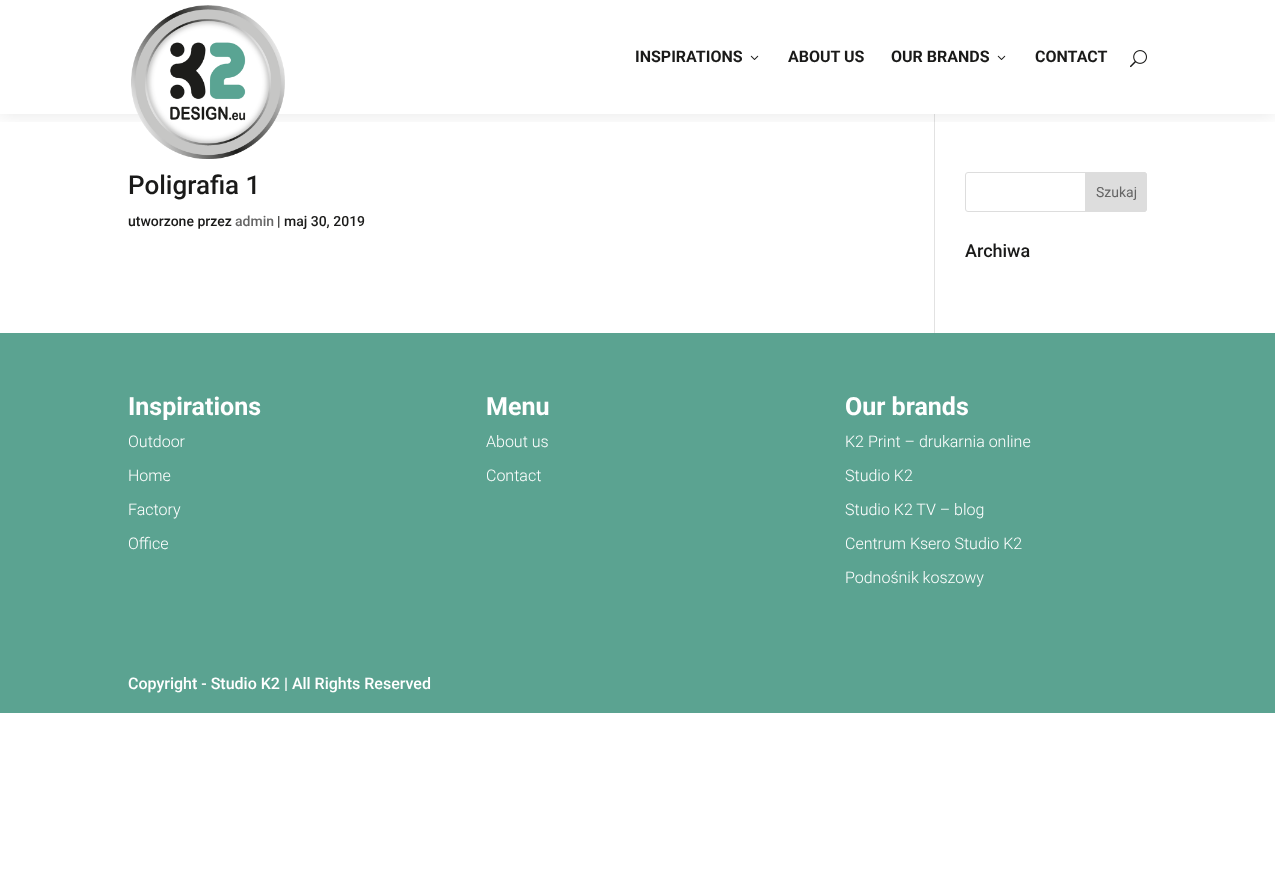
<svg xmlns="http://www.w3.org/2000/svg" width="1275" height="884">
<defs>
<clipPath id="clip1"><rect x="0" y="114" width="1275" height="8"/></clipPath>
</defs>
<rect width="100%" height="100%" fill="#fff"/>
<rect x="934" y="114" width="1" height="219" fill="#e2e2e2"/>
<g clip-path="url(#clip1)">
<rect width="1275" height="114" fill="#0000001a" filter="blur(10px)"/>
</g>
<image x="131" y="5" width="154" height="154" href="media/1.png"/>
<text x="635" y="62" style="font-family:Roboto;font-size:16px;font-weight:bold;fill:#1a1a19">INSPIRATIONS</text>
<image x="750" y="55" width="9" height="5" href="media/2.png"/>
<text x="788" y="62" style="font-family:Roboto;font-size:16px;font-weight:bold;fill:#1a1a19">ABOUT US</text>
<text x="891" y="62" style="font-family:Roboto;font-size:16px;font-weight:bold;fill:#1a1a19">OUR BRANDS</text>
<image x="997" y="55" width="9" height="5" href="media/2.png"/>
<text x="1035" y="62" style="font-family:Roboto;font-size:16px;font-weight:bold;fill:#1a1a19">CONTACT</text>
<image x="1130" y="50" width="17" height="18" href="media/3.png"/>
<text x="128" y="194" style="font-family:Roboto;font-size:26px;font-weight:500;fill:#1a1a19">Poligrafia 1</text>
<text x="128" y="226" style="font-family:Roboto;font-size:14px;font-weight:500;fill:#1a1a19">utworzone przez</text>
<text x="235" y="226" style="font-family:Roboto;font-size:14px;font-weight:500;fill:#666">admin</text>
<text x="277" y="226" style="font-family:Roboto;font-size:14px;font-weight:500;fill:#1a1a19">| maj 30, 2019</text>
<rect x="965.5" y="172.5" width="181" height="39" rx="2.5" fill="none" stroke="#ddd"/>
<path d="M1085.5 172.5h58.5c1.5 0 2.5 1 2.5 2.5v34c0 1.5-1 2.5-2.5 2.5h-58.5z" fill="#ddd" stroke="#ddd"/>
<text x="1096" y="197" style="font-family:Roboto;font-size:14px;fill:#666">Szukaj</text>
<text x="965" y="257" style="font-family:Roboto;font-size:18px;font-weight:500;fill:#1a1a19">Archiwa</text>
<rect y="333" width="1275" height="380" fill="#5ba391"/>
<text x="128" y="415" style="font-family:Roboto;font-size:25px;font-weight:bold;fill:#fff">Inspirations</text>
<text x="128" y="447" style="font-family:Roboto;font-size:16px;font-weight:300;fill:#fff">Outdoor</text>
<text x="128" y="481" style="font-family:Roboto;font-size:16px;font-weight:300;fill:#fff">Home</text>
<text x="128" y="515" style="font-family:Roboto;font-size:16px;font-weight:300;fill:#fff">Factory</text>
<text x="128" y="549" style="font-family:Roboto;font-size:16px;font-weight:300;fill:#fff">Office</text>
<text x="486" y="415" style="font-family:Roboto;font-size:25px;font-weight:bold;fill:#fff">Menu</text>
<text x="486" y="447" style="font-family:Roboto;font-size:16px;font-weight:300;fill:#fff">About us</text>
<text x="486" y="481" style="font-family:Roboto;font-size:16px;font-weight:300;fill:#fff">Contact</text>
<text x="845" y="415" style="font-family:Roboto;font-size:25px;font-weight:bold;fill:#fff">Our brands</text>
<text x="845" y="447" style="font-family:Roboto;font-size:16px;font-weight:300;fill:#fff">K2 Print – drukarnia online</text>
<text x="845" y="481" style="font-family:Roboto;font-size:16px;font-weight:300;fill:#fff">Studio K2</text>
<text x="845" y="515" style="font-family:Roboto;font-size:16px;font-weight:300;fill:#fff">Studio K2 TV – blog</text>
<text x="845" y="549" style="font-family:Roboto;font-size:16px;font-weight:300;fill:#fff">Centrum Ksero Studio K2</text>
<text x="845" y="583" style="font-family:Roboto;font-size:16px;font-weight:300;fill:#fff">Podnośnik koszowy</text>
<text x="128" y="689" style="font-family:Roboto;font-size:16px;font-weight:500;fill:#fff">Copyright - Studio K2 | All Rights Reserved</text>
</svg>
